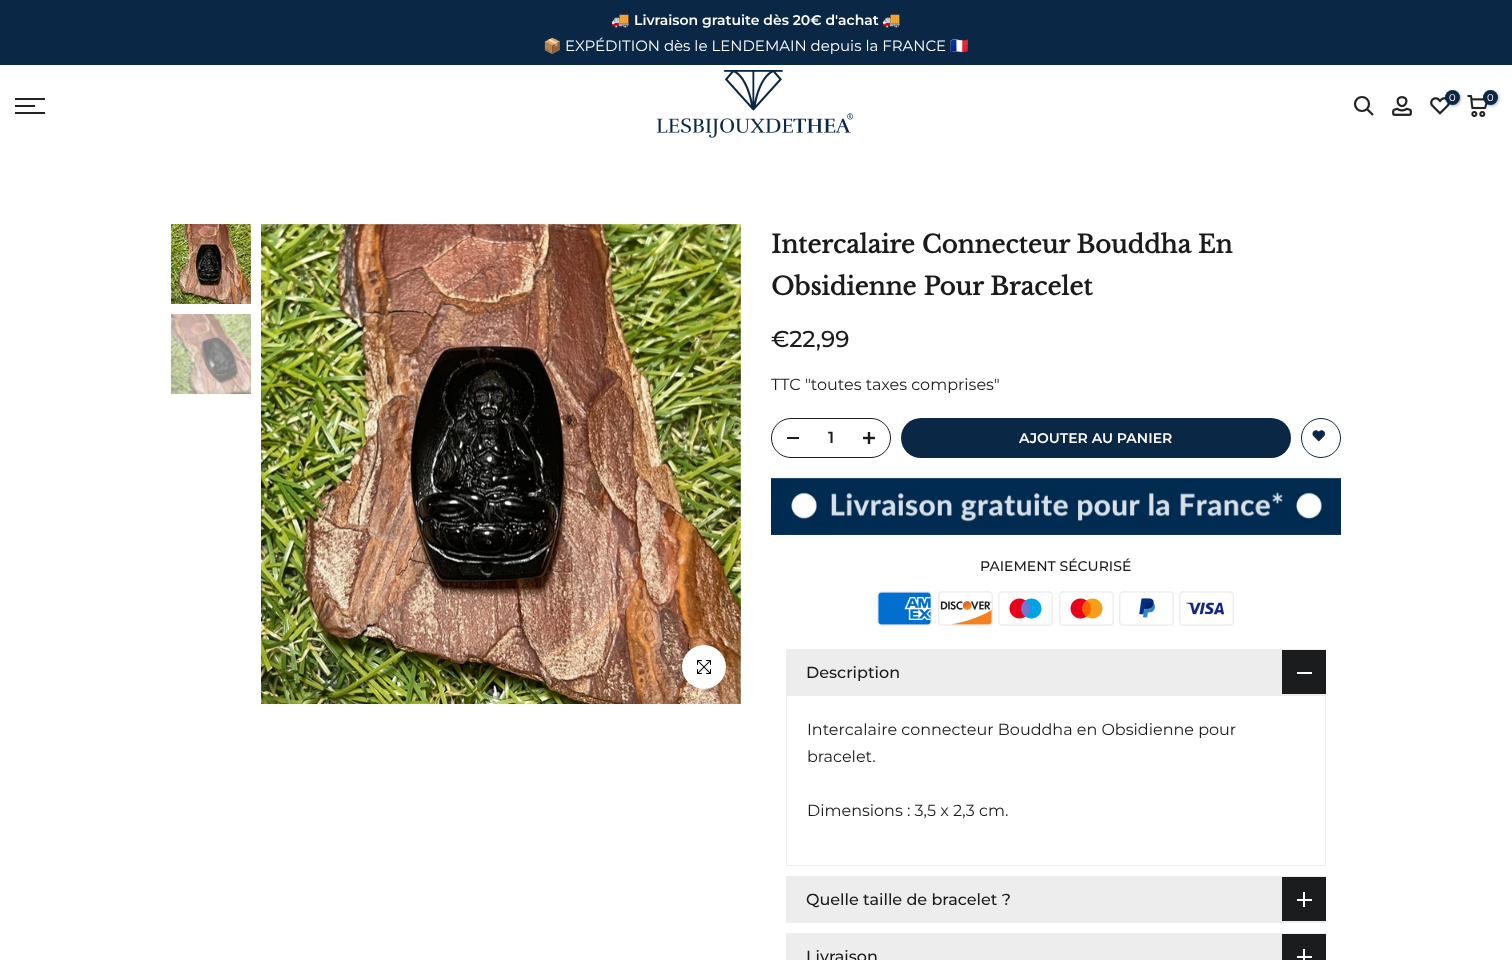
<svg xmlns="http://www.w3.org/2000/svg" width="1512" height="960">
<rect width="100%" height="100%" fill="#fff"/>
<rect width="1512" height="65" fill="#0b2746"/>
<text x="611" y="25" style="font-family:Noto Color Emoji;font-size:15px;fill:#fff">🚚</text>
<text x="634" y="25" style="font-family:Montserrat;font-size:14px;font-weight:600;fill:#fff">Livraison gratuite dès 20€ d'achat</text>
<text x="882" y="25" style="font-family:Noto Color Emoji;font-size:15px;fill:#fff">🚚</text>
<text x="543" y="51" style="font-family:Noto Color Emoji;font-size:15px;fill:#fff">📦</text>
<text x="565" y="51" style="font-family:Montserrat;font-size:15px;fill:#fff">EXPÉDITION dès le LENDEMAIN depuis la FRANCE</text>
<text x="950" y="51" style="font-family:Noto Color Emoji;font-size:15px;fill:#fff">🇫🇷</text>
<rect x="15" y="98" width="30" height="2" fill="#222"/>
<rect x="15" y="105" width="20" height="2" fill="#222"/>
<rect x="15" y="112" width="30" height="2" fill="#222"/>
<image x="656" y="70" width="198" height="68" href="media/1.png"/>
<circle cx="1362" cy="104" r="7" fill="none" stroke="#222" stroke-width="2.2"/>
<path d="M1367 109l6 6" fill="none" stroke="#222" stroke-width="2.2"/>
<image x="1392" y="96" width="20" height="20" href="media/2.png"/>
<image x="1430" y="97" width="20" height="18" href="media/3.png"/>
<rect x="1446" y="91" width="15" height="15" rx="7.5" fill="#0000004d" filter="blur(1.5px)"/>
<circle cx="1452.5" cy="97.5" r="7.5" fill="#0b2746"/>
<text x="1449" y="101" style="font-family:Montserrat;font-size:10px;fill:#fff">0</text>
<image x="1467" y="95" width="21" height="22" href="media/4.png"/>
<rect x="1484" y="91" width="15" height="15" rx="7.5" fill="#0000004d" filter="blur(1.5px)"/>
<circle cx="1490.5" cy="97.5" r="7.5" fill="#0b2746"/>
<text x="1487" y="101" style="font-family:Montserrat;font-size:10px;fill:#fff">0</text>
<image x="171" y="224" width="80" height="80" href="media/5.png"/>
<image x="171" y="314" width="80" height="80" href="media/6.png"/>
<image x="261" y="224" width="480" height="480" href="media/7.png"/>
<rect x="682" y="645" width="44" height="44" rx="22" fill="#00000017" filter="blur(2.5px)"/>
<circle cx="704" cy="667" r="22" fill="#fff"/>
<image x="697" y="660" width="14" height="14" href="media/8.png"/>
<text x="771" y="253" style="font-family:Libre Baskerville;font-size:24.5px;font-weight:bold;fill:#1b1b1b">Intercalaire Connecteur Bouddha En</text>
<text x="771" y="295" style="font-family:Libre Baskerville;font-size:24.5px;font-weight:bold;fill:#1b1b1b">Obsidienne Pour Bracelet</text>
<text x="771" y="347" style="font-family:Montserrat;font-size:23px;font-weight:500;fill:#1b1b1b">€22,99</text>
<text x="771" y="390" style="font-family:Montserrat;font-size:16px;fill:#1b1b1b">TTC "toutes taxes comprises"</text>
<rect x="771.5" y="418.5" width="119" height="39" rx="19.5" fill="none" stroke="#1a1c1e"/>
<rect x="787" y="437" width="12" height="2" fill="#1a1c1e"/>
<text x="828" y="443" style="font-family:Montserrat;font-size:16px;font-weight:600;fill:#1b1b1b">1</text>
<image x="863" y="432" width="12" height="12" href="media/9.png"/>
<rect x="901" y="418" width="390" height="40" rx="20" fill="#0b2746"/>
<text x="1019" y="443" style="font-family:Montserrat;font-size:14px;font-weight:600;fill:#fff">AJOUTER AU PANIER</text>
<circle cx="1321" cy="438" r="19.5" fill="none" stroke="#0b2746"/>
<image x="1312" y="430" width="13" height="12" href="media/10.png"/>
<image x="771" y="477" width="570" height="58" href="media/11.png"/>
<text x="980" y="571" style="font-family:Montserrat;font-size:14px;font-weight:500;fill:#1b1b1b">PAIEMENT SÉCURISÉ</text>
<image x="877" y="591" width="55" height="35" href="media/12.png"/>
<image x="938" y="591" width="55" height="35" href="media/13.png"/>
<image x="998" y="591" width="55" height="35" href="media/14.png"/>
<image x="1059" y="591" width="55" height="35" href="media/15.png"/>
<image x="1119" y="591" width="55" height="35" href="media/16.png"/>
<image x="1179" y="591" width="55" height="35" href="media/17.png"/>
<rect x="786" y="649" width="540" height="47" fill="#ededed"/>
<text x="806" y="678" style="font-family:Montserrat;font-size:16px;font-weight:500;fill:#1b1b1b">Description</text>
<rect x="1282" y="650" width="44" height="44" fill="#1a1c1e"/>
<rect x="1297" y="672" width="15" height="2" fill="#fff"/>
<path d="M1326 696v170l-1-1v-169z" fill="#ededed"/>
<path d="M1326 866h-540l1-1h538z" fill="#1a1c1e14"/>
<path d="M786 866v-170h1v169z" fill="#1a1c1e14"/>
<text x="807" y="735" style="font-family:Montserrat;font-size:16px;fill:#1b1b1b">Intercalaire connecteur Bouddha en Obsidienne pour</text>
<text x="807" y="762" style="font-family:Montserrat;font-size:16px;fill:#1b1b1b">bracelet.</text>
<text x="807" y="816" style="font-family:Montserrat;font-size:16px;fill:#1b1b1b">Dimensions : 3,5 x 2,3 cm.</text>
<rect x="786" y="876" width="540" height="47" fill="#ededed"/>
<text x="806" y="905" style="font-family:Montserrat;font-size:16px;font-weight:500;fill:#1b1b1b">Quelle taille de bracelet ?</text>
<rect x="1282" y="877" width="44" height="44" fill="#1a1c1e"/>
<rect x="1303" y="892" width="2" height="15" fill="#fff"/>
<rect x="1297" y="899" width="15" height="2" fill="#fff"/>
<rect x="786" y="933" width="540" height="27" fill="#ededed"/>
<text x="806" y="962" style="font-family:Montserrat;font-size:16px;font-weight:500;fill:#1b1b1b">Livraison</text>
<rect x="1282" y="934" width="44" height="26" fill="#1a1c1e"/>
<rect x="1303" y="949" width="2" height="11" fill="#fff"/>
<rect x="1297" y="956" width="15" height="2" fill="#fff"/>
</svg>
